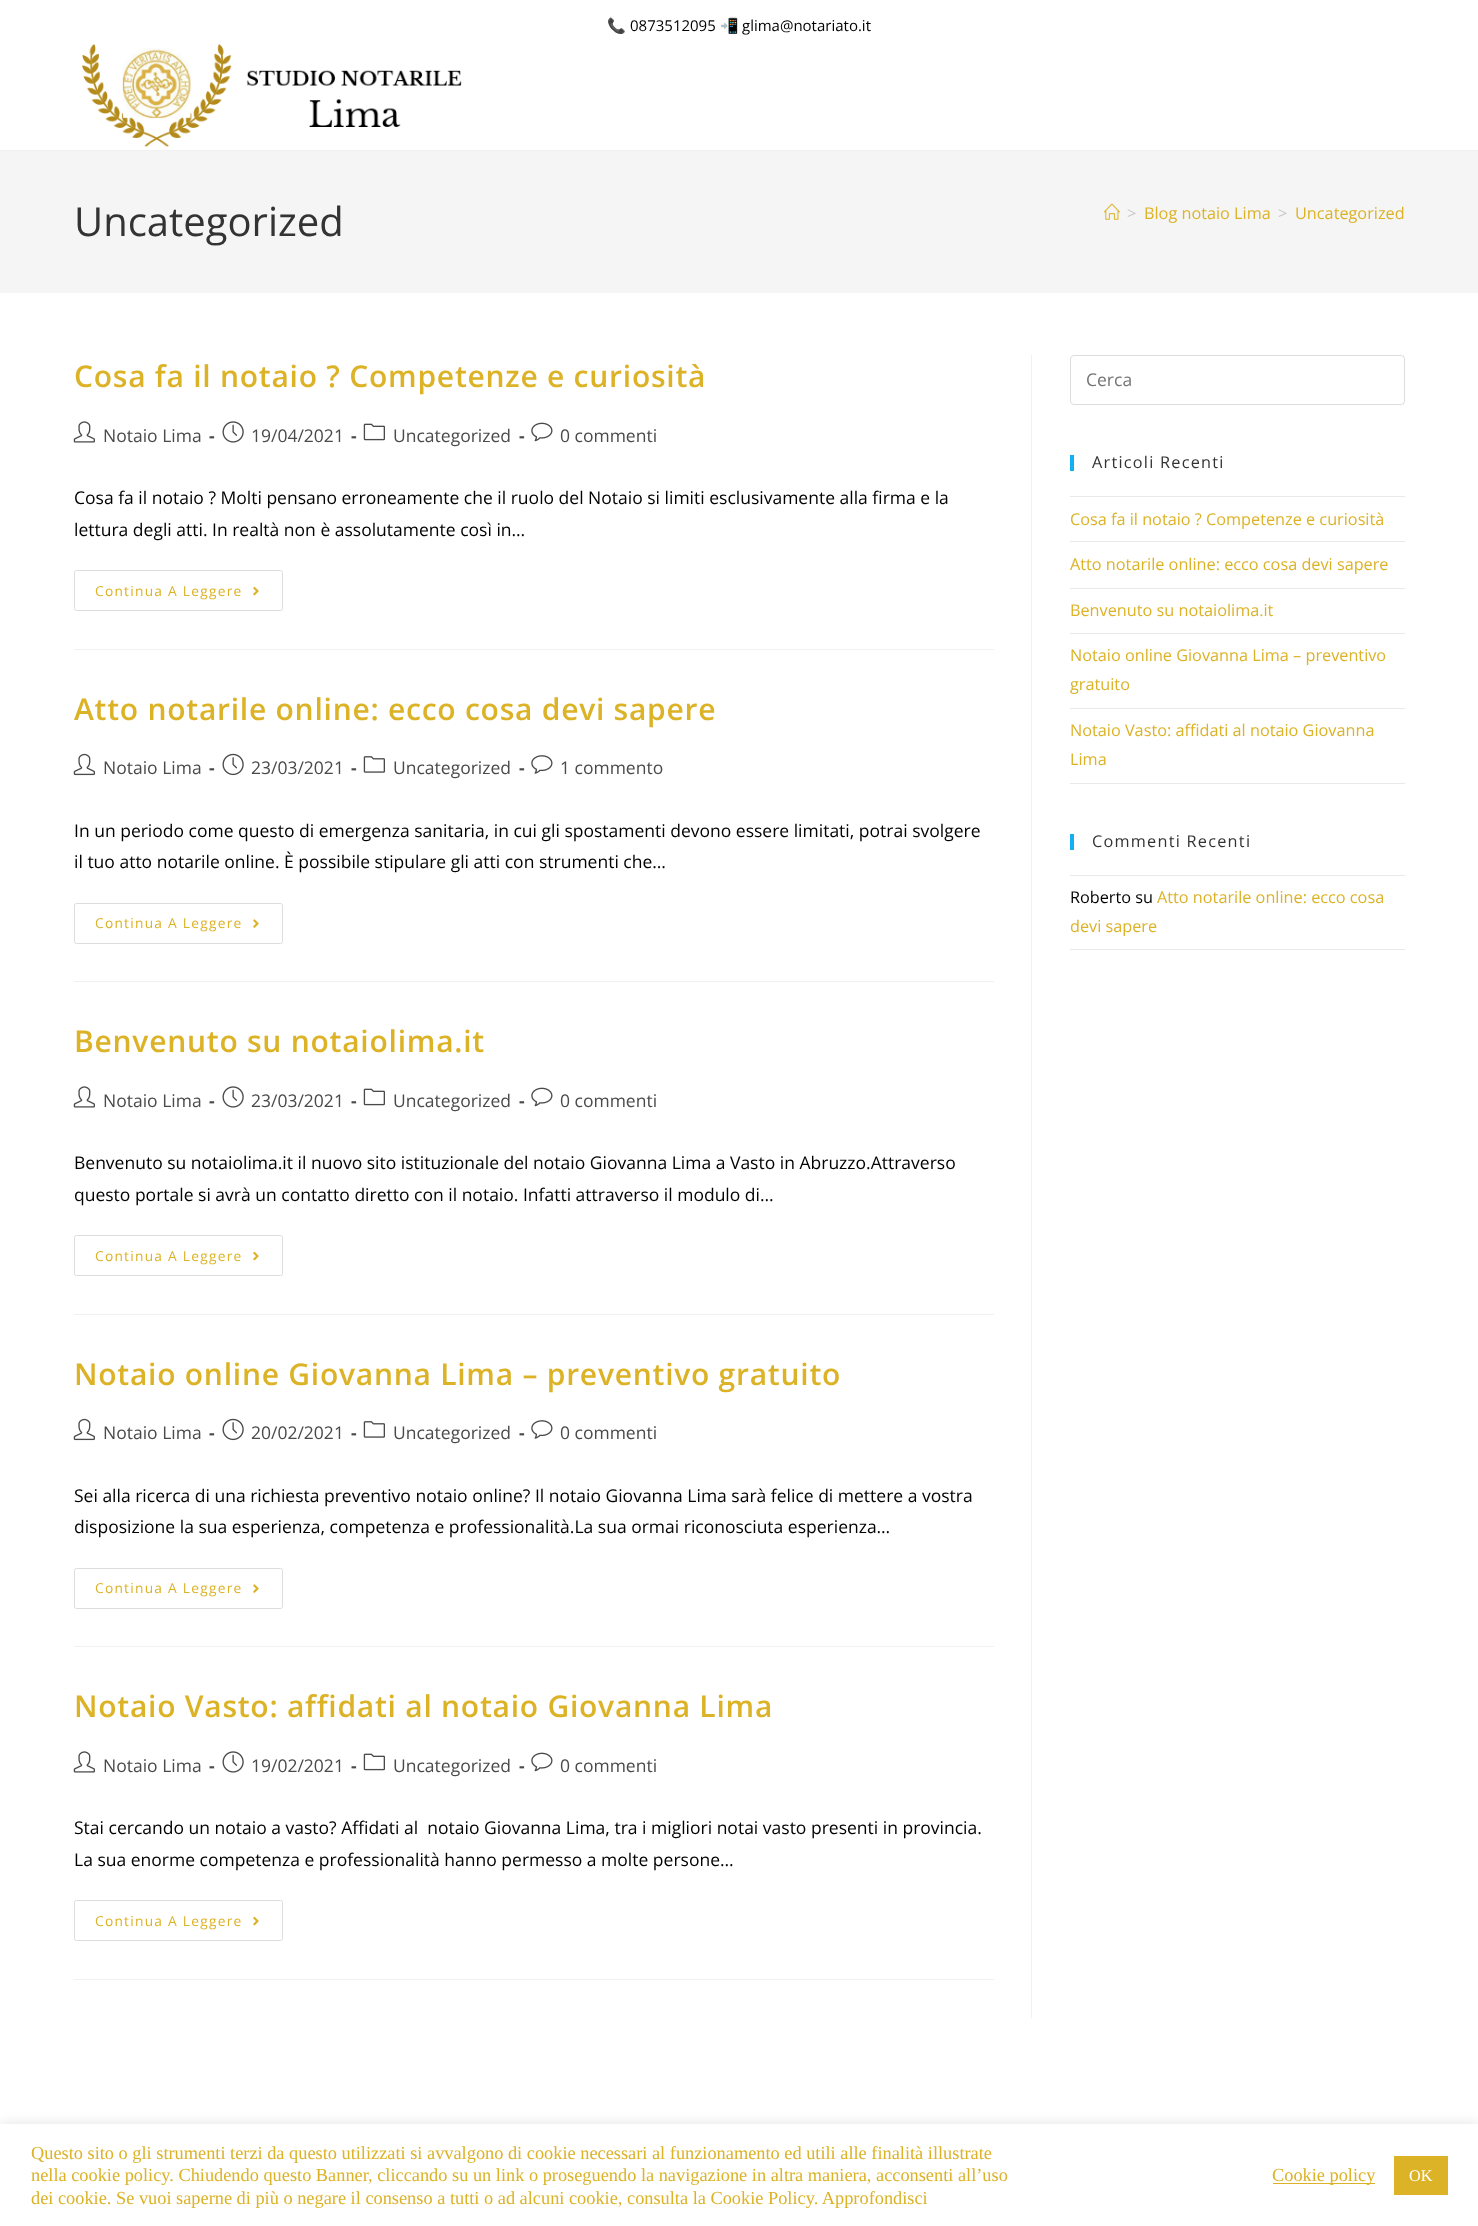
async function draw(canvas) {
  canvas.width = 1478;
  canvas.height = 2226;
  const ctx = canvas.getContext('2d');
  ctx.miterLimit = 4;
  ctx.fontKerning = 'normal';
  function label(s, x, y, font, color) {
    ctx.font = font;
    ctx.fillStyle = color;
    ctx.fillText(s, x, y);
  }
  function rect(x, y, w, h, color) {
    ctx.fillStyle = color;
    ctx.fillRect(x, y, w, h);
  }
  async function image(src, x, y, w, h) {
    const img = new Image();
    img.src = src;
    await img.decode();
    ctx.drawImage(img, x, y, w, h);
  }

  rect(0, 0, 1478, 2226, '#fff');
  label('📞', 607, 31, '15px Noto Color Emoji', '#000');
  label('0873512095', 630, 31, '15px Open Sans', '#000');
  label('📲', 720, 31, '15px Noto Color Emoji', '#000');
  label('glima@notariato.it', 742, 31, '15px Open Sans', '#000');
  rect(0, 150, 1478, 1, '#f1f1f1');
  await image('assets/img1.png', 82, 44, 380, 103);
  rect(0, 151, 1478, 142, '#f5f5f5');
  label('Uncategorized', 74, 236, '40px Open Sans', '#333');
  await image('assets/img2.png', 1104, 203, 16, 17);
  label('>', 1127, 219, '16.25px Open Sans', '#c6c6c6');
  label('Blog notaio Lima', 1144, 219, '16.25px Open Sans', '#dcb226');
  label('>', 1278, 219, '16.25px Open Sans', '#c6c6c6');
  label('Uncategorized', 1295, 219, '16.25px Open Sans', '#dcb226');
  rect(1031, 355, 1, 1663, '#f1f1f1');
  rect(74, 649, 920, 1, '#f1f1f1');
  ctx.letterSpacing = '0.75px';
  label('Cosa fa il notaio ? Competenze e curiosità', 74, 387, '600 30px Open Sans', '#dcb226');
  await image('assets/img3.png', 73, 421, 22, 22);
  ctx.letterSpacing = '0px';
  label('Notaio Lima', 103, 442, '17.5px Open Sans', '#4a4a4a');
  label('-', 209, 442, 'bold 17.5px Open Sans', '#4a4a4a');
  await image('assets/img4.png', 222, 421, 22, 22);
  label('19/04/2021', 251, 442, '17.5px Open Sans', '#4a4a4a');
  label('-', 351, 442, 'bold 17.5px Open Sans', '#4a4a4a');
  await image('assets/img5.png', 363, 423, 22, 18);
  label('Uncategorized', 393, 442, '17.5px Open Sans', '#4a4a4a');
  label('-', 519, 442, 'bold 17.5px Open Sans', '#4a4a4a');
  await image('assets/img6.png', 531, 422, 22, 20);
  label('0 commenti', 560, 442, '17.5px Open Sans', '#4a4a4a');
  label('Cosa fa il notaio ? Molti pensano erroneamente che il ruolo del Notaio si limiti esclusivamente alla firma e la', 74, 504, '17.5px Open Sans', '#000');
  label('lettura degli atti. In realtà non è assolutamente così in…', 74, 536, '17.5px Open Sans', '#000');
  ctx.beginPath();
  ctx.roundRect(74.5, 570.5, 208, 40, 2);
  ctx.strokeStyle = '#ddd';
  ctx.stroke();
  ctx.letterSpacing = '1.25px';
  label('Continua A Leggere', 95, 596, '13.75px Open Sans', '#dcb226');
  await image('assets/img7.png', 253, 586, 6, 10);
  rect(74, 981, 920, 1, '#f1f1f1');
  ctx.letterSpacing = '0.75px';
  label('Atto notarile online: ecco cosa devi sapere', 74, 720, '600 30px Open Sans', '#dcb226');
  await image('assets/img8.png', 73, 753, 22, 23);
  ctx.letterSpacing = '0px';
  label('Notaio Lima', 103, 774, '17.5px Open Sans', '#4a4a4a');
  label('-', 209, 774, 'bold 17.5px Open Sans', '#4a4a4a');
  await image('assets/img9.png', 222, 753, 22, 23);
  label('23/03/2021', 251, 774, '17.5px Open Sans', '#4a4a4a');
  label('-', 351, 774, 'bold 17.5px Open Sans', '#4a4a4a');
  await image('assets/img10.png', 363, 756, 22, 17);
  label('Uncategorized', 393, 774, '17.5px Open Sans', '#4a4a4a');
  label('-', 519, 774, 'bold 17.5px Open Sans', '#4a4a4a');
  await image('assets/img11.png', 531, 755, 22, 19);
  label('1 commento', 560, 774, '17.5px Open Sans', '#4a4a4a');
  label('In un periodo come questo di emergenza sanitaria, in cui gli spostamenti devono essere limitati, potrai svolgere', 74, 837, '17.5px Open Sans', '#000');
  label('il tuo atto notarile online. È possibile stipulare gli atti con strumenti che…', 74, 868, '17.5px Open Sans', '#000');
  ctx.beginPath();
  ctx.roundRect(74.5, 903.5, 208, 40, 2);
  ctx.stroke();
  ctx.letterSpacing = '1.25px';
  label('Continua A Leggere', 95, 928, '13.75px Open Sans', '#dcb226');
  await image('assets/img12.png', 253, 919, 6, 9);
  rect(74, 1314, 920, 1, '#f1f1f1');
  ctx.letterSpacing = '0.75px';
  label('Benvenuto su notaiolima.it', 74, 1052, '600 30px Open Sans', '#dcb226');
  await image('assets/img3.png', 73, 1086, 22, 22);
  ctx.letterSpacing = '0px';
  label('Notaio Lima', 103, 1107, '17.5px Open Sans', '#4a4a4a');
  label('-', 209, 1107, 'bold 17.5px Open Sans', '#4a4a4a');
  await image('assets/img4.png', 222, 1086, 22, 22);
  label('23/03/2021', 251, 1107, '17.5px Open Sans', '#4a4a4a');
  label('-', 351, 1107, 'bold 17.5px Open Sans', '#4a4a4a');
  await image('assets/img5.png', 363, 1088, 22, 18);
  label('Uncategorized', 393, 1107, '17.5px Open Sans', '#4a4a4a');
  label('-', 519, 1107, 'bold 17.5px Open Sans', '#4a4a4a');
  await image('assets/img6.png', 531, 1087, 22, 20);
  label('0 commenti', 560, 1107, '17.5px Open Sans', '#4a4a4a');
  label('Benvenuto su notaiolima.it il nuovo sito istituzionale del notaio Giovanna Lima a Vasto in Abruzzo.Attraverso', 74, 1169, '17.5px Open Sans', '#000');
  label('questo portale si avrà un contatto diretto con il notaio. Infatti attraverso il modulo di…', 74, 1201, '17.5px Open Sans', '#000');
  ctx.beginPath();
  ctx.roundRect(74.5, 1235.5, 208, 40, 2);
  ctx.stroke();
  ctx.letterSpacing = '1.25px';
  label('Continua A Leggere', 95, 1261, '13.75px Open Sans', '#dcb226');
  await image('assets/img7.png', 253, 1251, 6, 10);
  rect(74, 1646, 920, 1, '#f1f1f1');
  ctx.letterSpacing = '0.75px';
  label('Notaio online Giovanna Lima – preventivo gratuito', 74, 1385, '600 30px Open Sans', '#dcb226');
  await image('assets/img8.png', 73, 1418, 22, 23);
  ctx.letterSpacing = '0px';
  label('Notaio Lima', 103, 1439, '17.5px Open Sans', '#4a4a4a');
  label('-', 209, 1439, 'bold 17.5px Open Sans', '#4a4a4a');
  await image('assets/img9.png', 222, 1418, 22, 23);
  label('20/02/2021', 251, 1439, '17.5px Open Sans', '#4a4a4a');
  label('-', 351, 1439, 'bold 17.5px Open Sans', '#4a4a4a');
  await image('assets/img10.png', 363, 1421, 22, 17);
  label('Uncategorized', 393, 1439, '17.5px Open Sans', '#4a4a4a');
  label('-', 519, 1439, 'bold 17.5px Open Sans', '#4a4a4a');
  await image('assets/img11.png', 531, 1420, 22, 19);
  label('0 commenti', 560, 1439, '17.5px Open Sans', '#4a4a4a');
  label('Sei alla ricerca di una richiesta preventivo notaio online? Il notaio Giovanna Lima sarà felice di mettere a vostra', 74, 1502, '17.5px Open Sans', '#000');
  label('disposizione la sua esperienza, competenza e professionalità.La sua ormai riconosciuta esperienza…', 74, 1533, '17.5px Open Sans', '#000');
  ctx.beginPath();
  ctx.roundRect(74.5, 1568.5, 208, 40, 2);
  ctx.stroke();
  ctx.letterSpacing = '1.25px';
  label('Continua A Leggere', 95, 1593, '13.75px Open Sans', '#dcb226');
  await image('assets/img12.png', 253, 1584, 6, 9);
  rect(74, 1979, 920, 1, '#f1f1f1');
  ctx.letterSpacing = '0.75px';
  label('Notaio Vasto: affidati al notaio Giovanna Lima', 74, 1717, '600 30px Open Sans', '#dcb226');
  await image('assets/img3.png', 73, 1751, 22, 22);
  ctx.letterSpacing = '0px';
  label('Notaio Lima', 103, 1772, '17.5px Open Sans', '#4a4a4a');
  label('-', 209, 1772, 'bold 17.5px Open Sans', '#4a4a4a');
  await image('assets/img4.png', 222, 1751, 22, 22);
  label('19/02/2021', 251, 1772, '17.5px Open Sans', '#4a4a4a');
  label('-', 351, 1772, 'bold 17.5px Open Sans', '#4a4a4a');
  await image('assets/img5.png', 363, 1753, 22, 18);
  label('Uncategorized', 393, 1772, '17.5px Open Sans', '#4a4a4a');
  label('-', 519, 1772, 'bold 17.5px Open Sans', '#4a4a4a');
  await image('assets/img6.png', 531, 1752, 22, 20);
  label('0 commenti', 560, 1772, '17.5px Open Sans', '#4a4a4a');
  label('Stai cercando un notaio a vasto? Affidati al  notaio Giovanna Lima, tra i migliori notai vasto presenti in provincia.', 74, 1834, '17.5px Open Sans', '#000');
  label('La sua enorme competenza e professionalità hanno permesso a molte persone…', 74, 1866, '17.5px Open Sans', '#000');
  ctx.beginPath();
  ctx.roundRect(74.5, 1900.5, 208, 40, 2);
  ctx.stroke();
  ctx.letterSpacing = '1.25px';
  label('Continua A Leggere', 95, 1926, '13.75px Open Sans', '#dcb226');
  await image('assets/img7.png', 253, 1916, 6, 10);
  ctx.beginPath();
  ctx.roundRect(1070.5, 355.5, 334, 49, 3.5);
  ctx.stroke();
  ctx.letterSpacing = '0px';
  label('Cerca', 1086, 386, '17.5px Open Sans', '#757575');
  rect(1070, 455, 4, 16, '#13aff0');
  ctx.letterSpacing = '1.25px';
  label('Articoli Recenti', 1092, 468, '16.25px Open Sans', '#333');
  rect(1070, 496, 335, 1, '#e9e9e9');
  rect(1070, 541, 335, 1, '#e9e9e9');
  ctx.letterSpacing = '0px';
  label('Cosa fa il notaio ? Competenze e curiosità', 1070, 525, '16.25px Open Sans', '#dcb226');
  rect(1070, 588, 335, 1, '#e9e9e9');
  label('Atto notarile online: ecco cosa devi sapere', 1070, 570, '16.25px Open Sans', '#dcb226');
  rect(1070, 633, 335, 1, '#e9e9e9');
  label('Benvenuto su notaiolima.it', 1070, 616, '16.25px Open Sans', '#dcb226');
  rect(1070, 708, 335, 1, '#e9e9e9');
  label('Notaio online Giovanna Lima – preventivo', 1070, 661, '16.25px Open Sans', '#dcb226');
  label('gratuito', 1070, 690, '16.25px Open Sans', '#dcb226');
  rect(1070, 783, 335, 1, '#e9e9e9');
  label('Notaio Vasto: affidati al notaio Giovanna', 1070, 736, '16.25px Open Sans', '#dcb226');
  label('Lima', 1070, 765, '16.25px Open Sans', '#dcb226');
  rect(1070, 834, 4, 16, '#13aff0');
  ctx.letterSpacing = '1.25px';
  label('Commenti Recenti', 1092, 847, '16.25px Open Sans', '#333');
  rect(1070, 875, 335, 1, '#e9e9e9');
  rect(1070, 949, 335, 1, '#e9e9e9');
  ctx.letterSpacing = '0px';
  label('Roberto su', 1070, 903, '16.25px Open Sans', '#000');
  label('Atto notarile online: ecco cosa', 1157, 903, '16.25px Open Sans', '#dcb226');
  label('devi sapere', 1070, 932, '16.25px Open Sans', '#dcb226');
  ctx.fillStyle = '#acabab4d';
  ctx.filter = 'blur(6px)';
  ctx.beginPath();
  ctx.rect(0, 2123, 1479, 102);
  ctx.fill();
  ctx.filter = 'none';
  rect(0, 2124, 1478, 102, '#fff');
  label('Questo sito o gli strumenti terzi da questo utilizzati si avvalgono di cookie necessari al funzionamento ed utili alle finalità illustrate', 31, 2159, '18.33px Liberation Serif', '#dcb226');
  label('nella cookie policy. Chiudendo questo Banner, cliccando su un link o proseguendo la navigazione in altra maniera, acconsenti all’uso', 31, 2181, '18.33px Liberation Serif', '#dcb226');
  label('dei cookie. Se vuoi saperne di più o negare il consenso a tutti o ad alcuni cookie, consulta la Cookie Policy. Approfondisci', 31, 2204, '18.33px Liberation Serif', '#dcb226');
  rect(1273, 2183, 102, 1, '#dcb226');
  label('Cookie policy', 1272, 2181, '18.33px Liberation Serif', '#dcb226');
  rect(1394, 2156, 54, 39, '#dcb226');
  label('OK', 1409, 2181, '16.25px Liberation Serif', '#fff');
}

draw(document.querySelector('canvas'));
